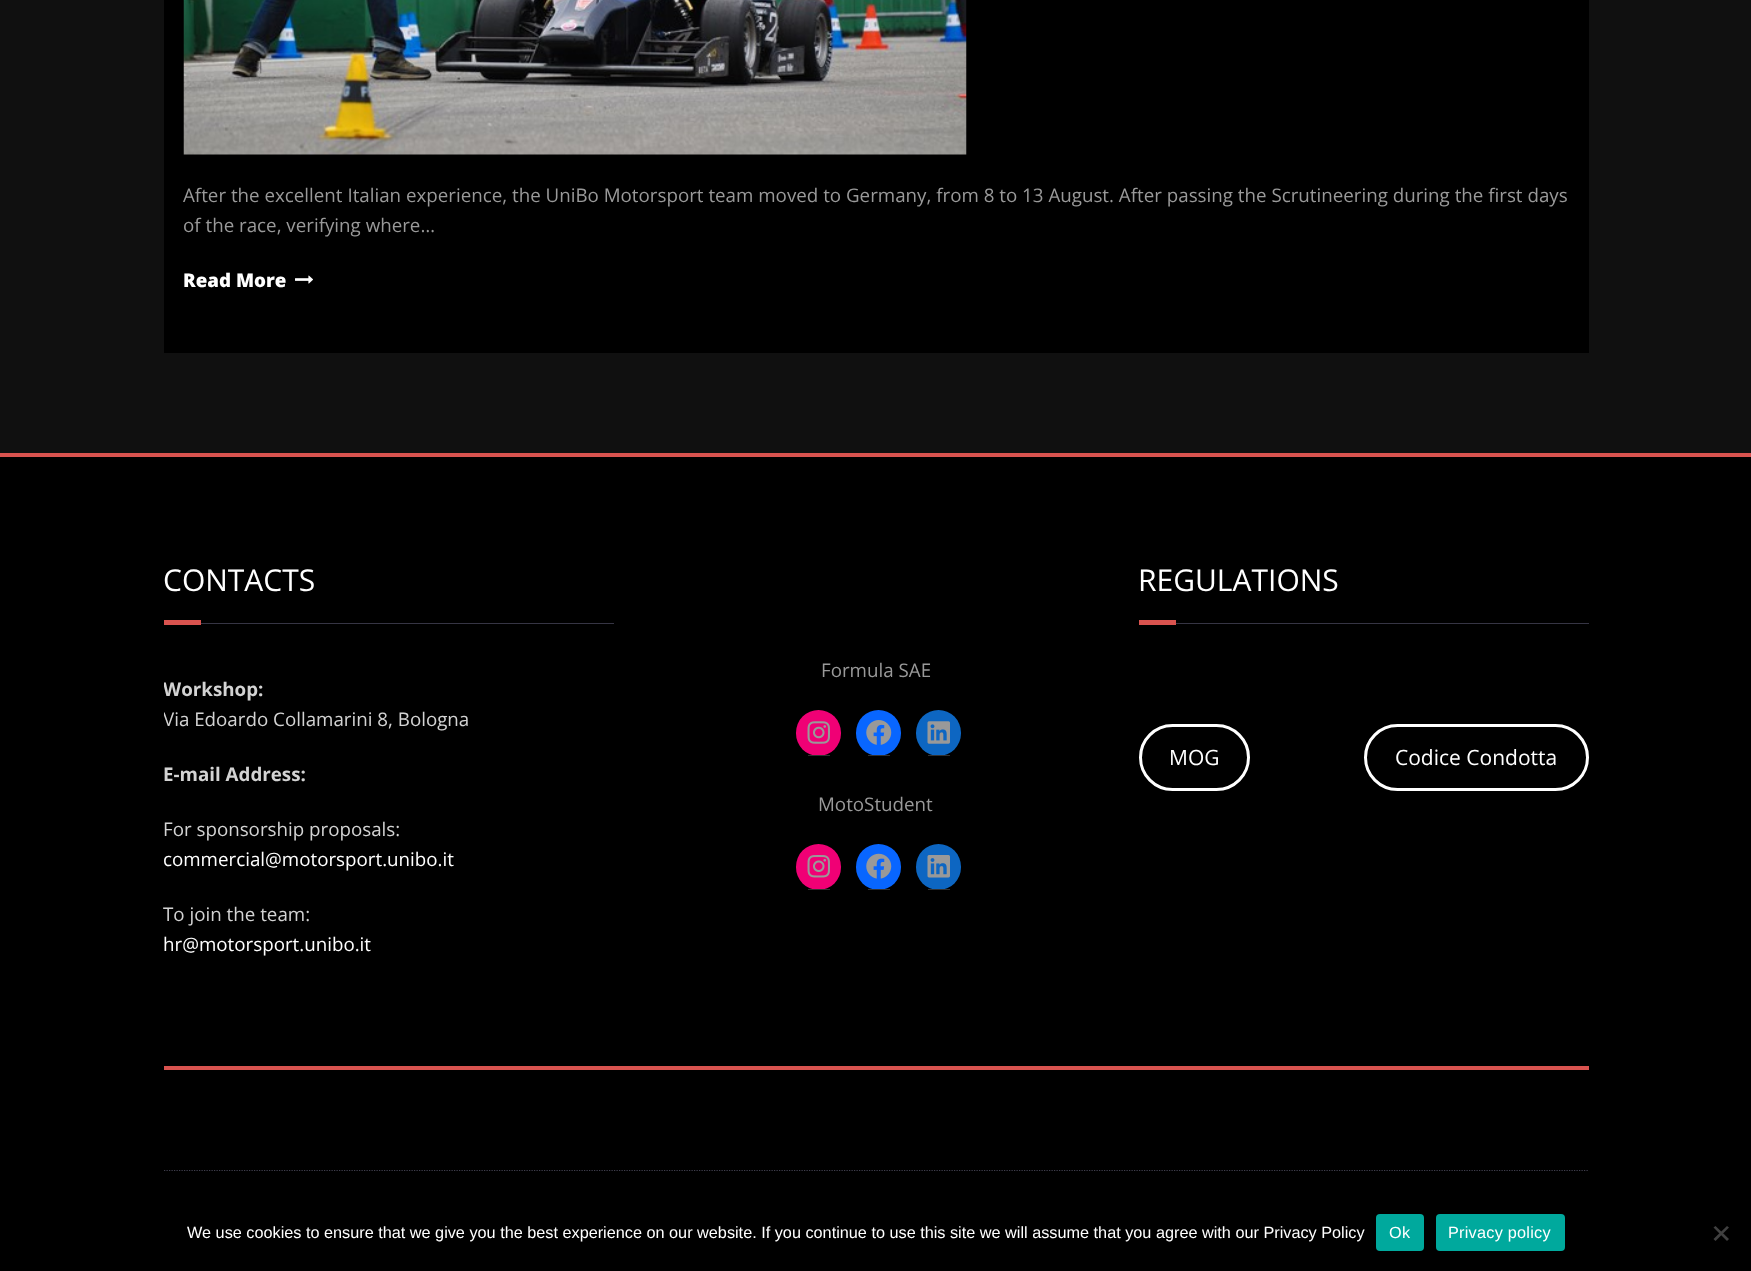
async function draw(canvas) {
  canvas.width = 1751;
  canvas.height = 1271;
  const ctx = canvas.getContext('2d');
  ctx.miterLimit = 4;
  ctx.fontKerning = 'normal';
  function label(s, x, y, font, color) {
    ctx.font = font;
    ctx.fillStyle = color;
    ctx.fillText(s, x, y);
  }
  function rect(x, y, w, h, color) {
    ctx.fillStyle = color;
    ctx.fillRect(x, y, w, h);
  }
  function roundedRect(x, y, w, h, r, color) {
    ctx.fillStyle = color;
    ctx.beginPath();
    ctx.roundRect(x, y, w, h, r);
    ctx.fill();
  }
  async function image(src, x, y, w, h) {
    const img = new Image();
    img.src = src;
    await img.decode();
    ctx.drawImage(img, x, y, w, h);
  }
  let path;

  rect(0, 0, 1751, 1271, '#000');
  rect(0, 0, 1751, 453, '#101010');
  rect(164, 0, 1425, 353, '#000');
  await image('assets/img1.png', 183, 0, 784, 155);
  label('After the excellent Italian experience, the UniBo Motorsport team moved to Germany, from 8 to 13 August. After passing the Scrutineering during the first days', 183, 202, '18.75px Open Sans', '#999');
  label('of the race, verifying where…', 183, 232, '18.75px Open Sans', '#999');
  label('Read More', 183, 287, '800 18.75px Open Sans', '#fff');
  await image('assets/img2.png', 295, 275, 18, 9);
  rect(0, 453, 1751, 4, '#d9534f');
  rect(201, 623, 413, 1, '#363544');
  label('CONTACTS', 163, 591, '30px Open Sans', '#fff');
  rect(164, 620, 37, 5, '#d9534f');
  ctx.save();
  ctx.beginPath();
  ctx.rect(164, 556, 450, 460);
  ctx.clip();
  label('Workshop:', 163, 696, 'bold 18.75px Open Sans', '#d3d3d3');
  label('Via Edoardo Collamarini 8, Bologna', 163, 726, '18.75px Open Sans', '#d3d3d3');
  ctx.restore();
  label('E-mail Address:', 163, 781, 'bold 18.75px Open Sans', '#d3d3d3');
  label('For sponsorship proposals:', 163, 836, '18.75px Open Sans', '#d3d3d3');
  label('commercial@motorsport.unibo.it', 163, 866, '18.75px Open Sans', '#fff');
  label('To join the team:', 163, 921, '18.75px Open Sans', '#d3d3d3');
  label('hr@motorsport.unibo.it', 163, 951, '18.75px Open Sans', '#fff');
  label('Formula SAE', 821, 677, '18.75px Open Sans', '#999');
  roundedRect(796, 710, 45, 46, 22.5, '#f00075');
  rect(808, 755, 22, 1, '#323232');
  await image('assets/img3.png', 807, 721, 23, 23);
  roundedRect(856, 710, 45, 46, 22.5, '#0866ff');
  rect(868, 755, 22, 1, '#323232');
  await image('assets/img4.png', 866, 720, 26, 25);
  roundedRect(916, 710, 45, 46, 22.5, '#0d66c2');
  rect(928, 755, 22, 1, '#323232');
  await image('assets/img5.png', 927, 721, 23, 23);
  label('MotoStudent', 818, 811, '18.75px Open Sans', '#999');
  roundedRect(796, 844, 45, 46, 22.5, '#f00075');
  rect(808, 889, 22, 1, '#323232');
  await image('assets/img6.png', 807, 855, 23, 23);
  roundedRect(856, 844, 45, 46, 22.5, '#0866ff');
  rect(868, 889, 22, 1, '#323232');
  await image('assets/img7.png', 866, 853, 26, 26);
  roundedRect(916, 844, 45, 46, 22.5, '#0d66c2');
  rect(928, 889, 22, 1, '#323232');
  await image('assets/img8.png', 927, 855, 23, 23);
  rect(1176, 623, 413, 1, '#363544');
  label('REGULATIONS', 1138, 591, '30px Open Sans', '#fff');
  rect(1139, 620, 37, 5, '#d9534f');
  ctx.beginPath();
  ctx.roundRect(1140.5, 725.5, 108, 64, 32);
  ctx.strokeStyle = '#fff';
  ctx.lineWidth = 3;
  ctx.stroke();
  label('MOG', 1169, 765, '21px Open Sans', '#fff');
  ctx.beginPath();
  ctx.roundRect(1365.5, 725.5, 222, 64, 32);
  ctx.stroke();
  label('Codice Condotta', 1395, 765, '21px Open Sans', '#fff');
  rect(164, 1066, 1425, 4, '#d9534f');
  path = new Path2D('M164 1170.5H1589');
  ctx.strokeStyle = '#403f4e';
  ctx.lineWidth = 1.2;
  ctx.setLineDash([1.25, 1.25]);
  ctx.stroke(path);
  label('We use cookies to ensure that we give you the best experience on our website. If you continue to use this site we will assume that you agree with our Privacy Policy', 187, 1238, '16.25px Liberation Sans', '#fff');
  roundedRect(1376, 1214, 48, 37, 4, '#00a99d');
  ctx.letterSpacing = '0.25px';
  label('Ok', 1389, 1238, '16.25px Liberation Sans', '#fff');
  roundedRect(1436, 1214, 129, 37, 4, '#00a99d');
  label('Privacy policy', 1448, 1238, '16.25px Liberation Sans', '#fff');
  ctx.fillStyle = '#404040';
  path = new Path2D('M1727 1226L1729 1227.5L1715.5 1241L1713.5 1239Z');
  ctx.fill(path);
  path = new Path2D('M1713.5 1227.5L1715.5 1226L1729 1239L1727 1241Z');
  ctx.fill(path);
}

draw(document.querySelector('canvas'));
